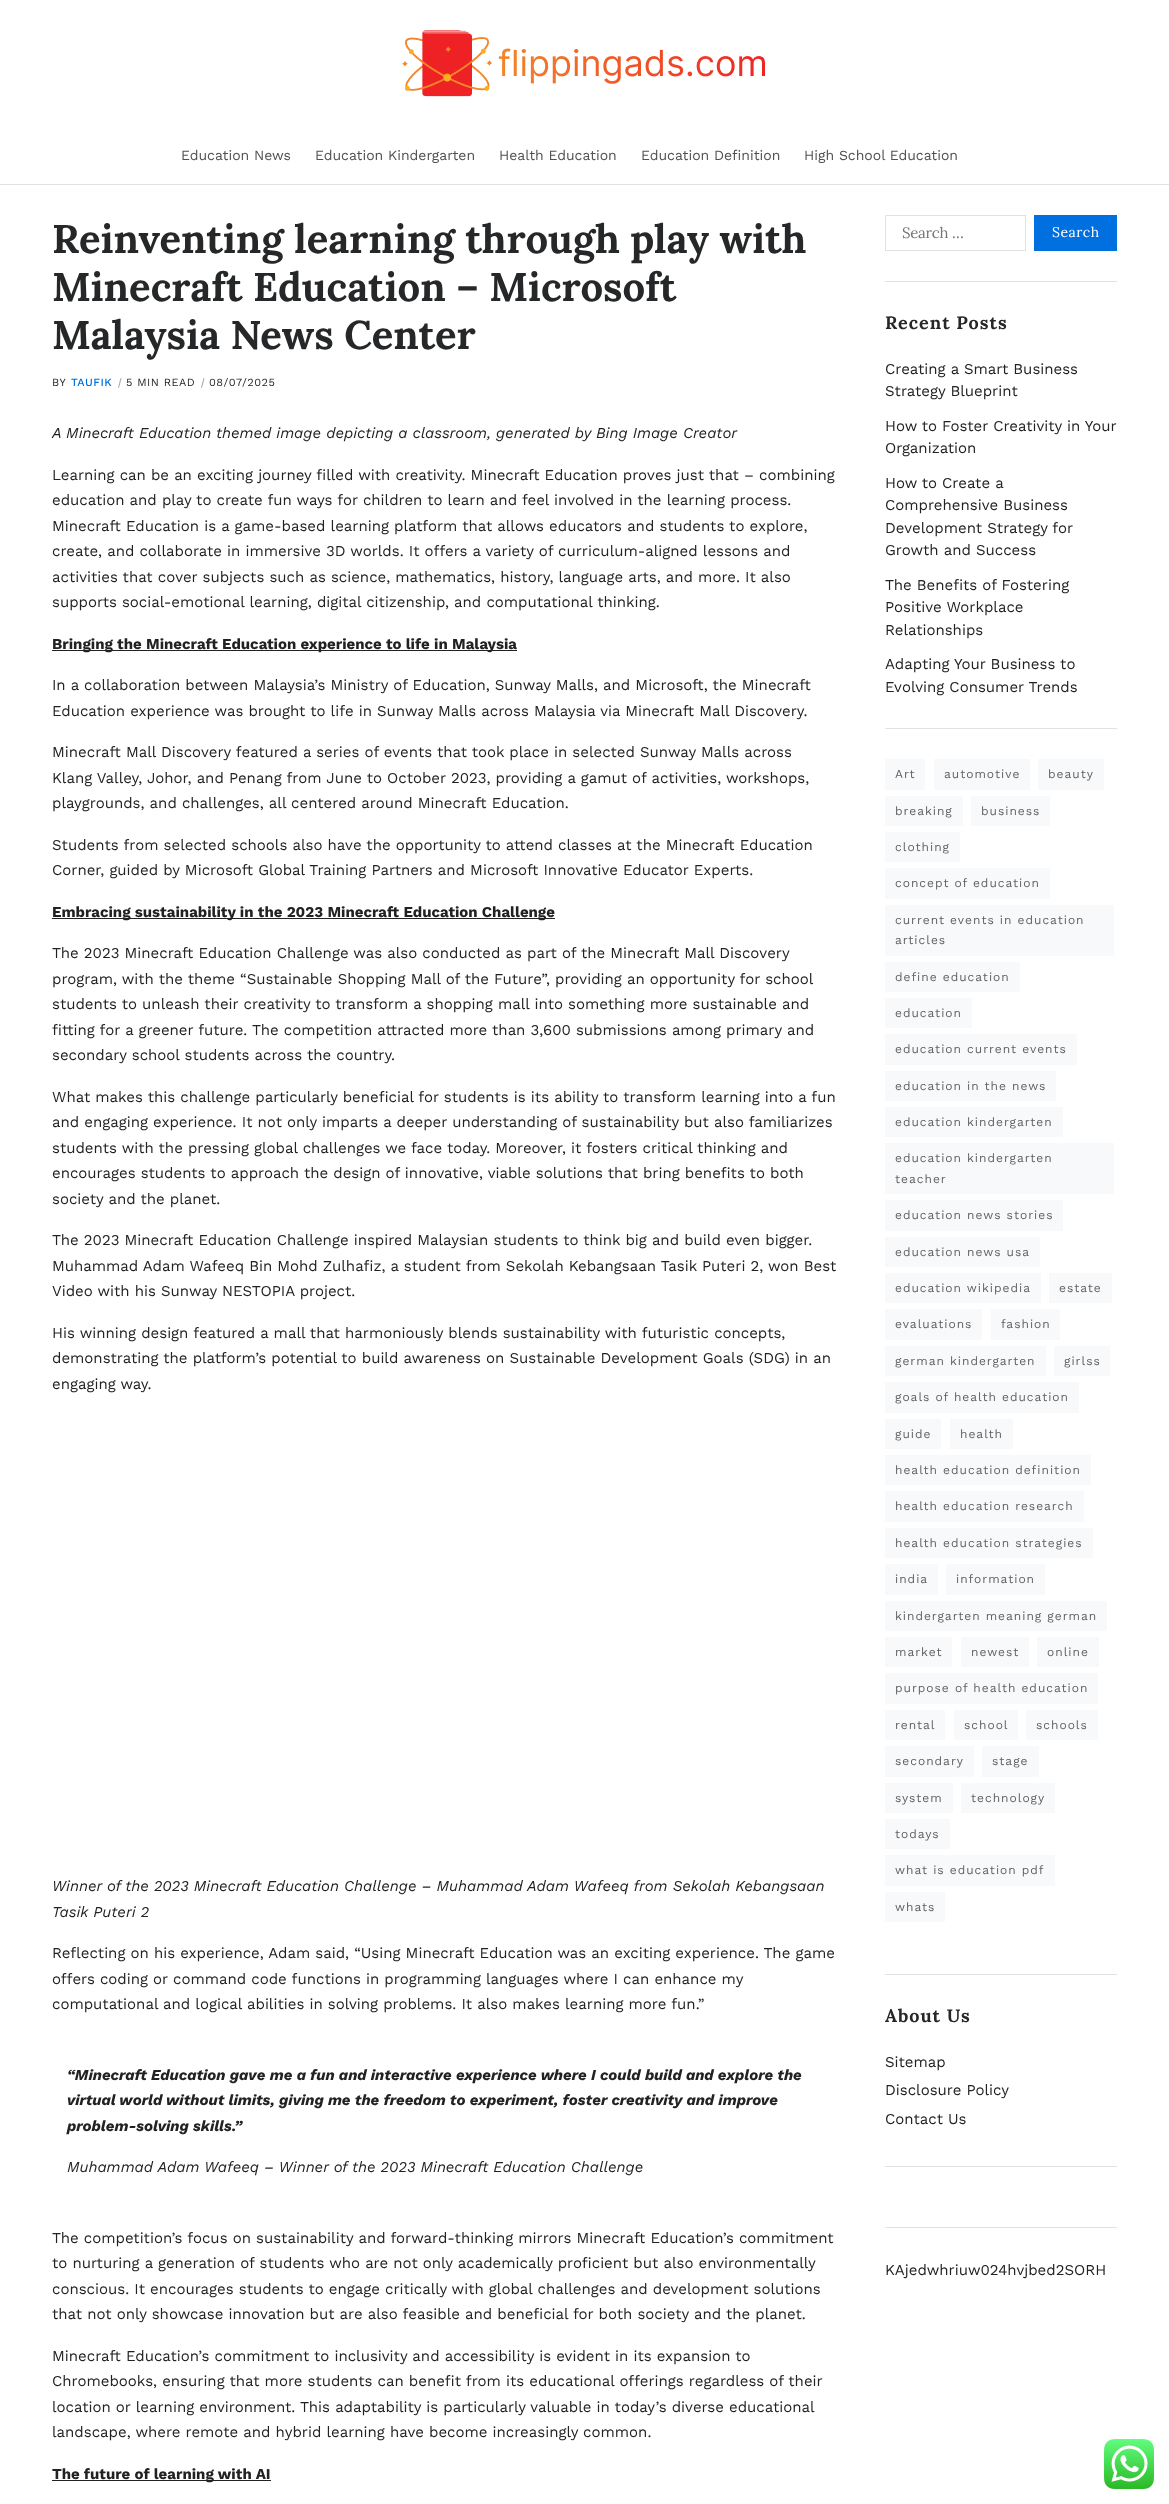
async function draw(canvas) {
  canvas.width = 1169;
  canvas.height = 2504;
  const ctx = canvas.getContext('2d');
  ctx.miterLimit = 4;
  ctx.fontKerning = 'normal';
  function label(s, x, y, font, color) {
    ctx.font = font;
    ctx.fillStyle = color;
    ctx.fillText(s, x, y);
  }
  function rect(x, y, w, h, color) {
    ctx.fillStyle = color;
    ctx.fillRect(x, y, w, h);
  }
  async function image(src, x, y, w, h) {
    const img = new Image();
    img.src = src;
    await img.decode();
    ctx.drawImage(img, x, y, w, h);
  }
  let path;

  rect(0, 0, 1169, 2504, '#fff');
  await image('assets/img1.png', 402, 30, 363, 67);
  rect(0, 184, 1169, 1, '#dee2e6');
  label('Education News', 181, 160, '14px Work Sans', '#505050');
  label('Education Kindergarten', 315, 160, '14px Work Sans', '#505050');
  label('Health Education', 499, 160, '14px Work Sans', '#505050');
  label('Education Definition', 641, 160, '14px Work Sans', '#505050');
  label('High School Education', 804, 160, '14px Work Sans', '#505050');
  label('Reinventing learning through play with', 52, 253, 'bold 40px Lora', '#252728');
  label('Minecraft Education – Microsoft', 52, 301, 'bold 40px Lora', '#252728');
  label('Malaysia News Center', 52, 349, 'bold 40px Lora', '#252728');
  ctx.letterSpacing = '0.5px';
  label('BY', 52, 386, '11px Work Sans', '#252728');
  label('TAUFIK', 71, 386, '500 11px Work Sans', '#0070e0');
  ctx.fillStyle = '#a7acb1';
  path = new Path2D('M120.5 378L121.5 378.5L119 388L118 387.5Z');
  ctx.fill(path);
  label('5 MIN READ', 126, 386, '11px Work Sans', '#252728');
  ctx.fillStyle = '#a7acb1';
  path = new Path2D('M203.5 378L204.5 378.5L202 388L201 387.5Z');
  ctx.fill(path);
  label('08/07/2025', 209, 386, '11px Work Sans', '#252728');
  ctx.letterSpacing = '0px';
  label('A Minecraft Education themed image depicting a classroom, generated by Bing Image Creator', 52, 438, 'italic 15px Work Sans', '#232222');
  label('Learning can be an exciting journey filled with creativity. Minecraft Education proves just that – combining', 52, 480, '15px Work Sans', '#232222');
  label('education and play to create fun ways for children to learn and feel involved in the learning process.', 52, 505, '15px Work Sans', '#232222');
  label('Minecraft Education is a game-based learning platform that allows educators and students to explore,', 52, 531, '15px Work Sans', '#232222');
  label('create, and collaborate in immersive 3D worlds. It offers a variety of curriculum-aligned lessons and', 52, 556, '15px Work Sans', '#232222');
  label('activities that cover subjects such as science, mathematics, history, language arts, and more. It also', 52, 582, '15px Work Sans', '#232222');
  label('supports social-emotional learning, digital citizenship, and computational thinking.', 52, 607, '15px Work Sans', '#232222');
  rect(52, 650, 465, 1, '#232222');
  label('Bringing the Minecraft Education experience to life in Malaysia', 52, 649, 'bold 15px Work Sans', '#232222');
  label('In a collaboration between Malaysia’s Ministry of Education, Sunway Malls, and Microsoft, the Minecraft', 52, 690, '15px Work Sans', '#232222');
  label('Education experience was brought to life in Sunway Malls across Malaysia via Minecraft Mall Discovery.', 52, 716, '15px Work Sans', '#232222');
  label('Minecraft Mall Discovery featured a series of events that took place in selected Sunway Malls across', 52, 757, '15px Work Sans', '#232222');
  label('Klang Valley, Johor, and Penang from June to October 2023, providing a gamut of activities, workshops,', 52, 783, '15px Work Sans', '#232222');
  label('playgrounds, and challenges, all centered around Minecraft Education.', 52, 808, '15px Work Sans', '#232222');
  label('Students from selected schools also have the opportunity to attend classes at the Minecraft Education', 52, 850, '15px Work Sans', '#232222');
  label('Corner, guided by Microsoft Global Training Partners and Microsoft Innovative Educator Experts.', 52, 875, '15px Work Sans', '#232222');
  rect(52, 918, 503, 1, '#232222');
  label('Embracing sustainability in the 2023 Minecraft Education Challenge', 52, 917, 'bold 15px Work Sans', '#232222');
  label('The 2023 Minecraft Education Challenge was also conducted as part of the Minecraft Mall Discovery', 52, 958, '15px Work Sans', '#232222');
  label('program, with the theme “Sustainable Shopping Mall of the Future”, providing an opportunity for school', 52, 984, '15px Work Sans', '#232222');
  label('students to unleash their creativity to transform a shopping mall into something more sustainable and', 52, 1009, '15px Work Sans', '#232222');
  label('fitting for a greener future. The competition attracted more than 3,600 submissions among primary and', 52, 1035, '15px Work Sans', '#232222');
  label('secondary school students across the country.', 52, 1060, '15px Work Sans', '#232222');
  label('What makes this challenge particularly beneficial for students is its ability to transform learning into a fun', 52, 1102, '15px Work Sans', '#232222');
  label('and engaging experience. It not only imparts a deeper understanding of sustainability but also familiarizes', 52, 1127, '15px Work Sans', '#232222');
  label('students with the pressing global challenges we face today. Moreover, it fosters critical thinking and', 52, 1153, '15px Work Sans', '#232222');
  label('encourages students to approach the design of innovative, viable solutions that bring benefits to both', 52, 1178, '15px Work Sans', '#232222');
  label('society and the planet.', 52, 1204, '15px Work Sans', '#232222');
  label('The 2023 Minecraft Education Challenge inspired Malaysian students to think big and build even bigger.', 52, 1245, '15px Work Sans', '#232222');
  label('Muhammad Adam Wafeeq Bin Mohd Zulhafiz, a student from Sekolah Kebangsaan Tasik Puteri 2, won Best', 52, 1271, '15px Work Sans', '#232222');
  label('Video with his Sunway NESTOPIA project.', 52, 1296, '15px Work Sans', '#232222');
  label('His winning design featured a mall that harmoniously blends sustainability with futuristic concepts,', 52, 1338, '15px Work Sans', '#232222');
  label('demonstrating the platform’s potential to build awareness on Sustainable Development Goals (SDG) in an', 52, 1363, '15px Work Sans', '#232222');
  label('engaging way.', 52, 1389, '15px Work Sans', '#232222');
  label('Winner of the 2023 Minecraft Education Challenge – Muhammad Adam Wafeeq from Sekolah Kebangsaan', 52, 1891, 'italic 15px Work Sans', '#232222');
  label('Tasik Puteri 2', 52, 1917, 'italic 15px Work Sans', '#232222');
  label('Reflecting on his experience, Adam said, “Using Minecraft Education was an exciting experience. The game', 52, 1958, '15px Work Sans', '#232222');
  label('offers coding or command code functions in programming languages where I can enhance my', 52, 1984, '15px Work Sans', '#232222');
  label('computational and logical abilities in solving problems. It also makes learning more fun.”', 52, 2009, '15px Work Sans', '#232222');
  label('“Minecraft Education gave me a fun and interactive experience where I could build and explore the', 67, 2080, 'italic bold 15px Work Sans', '#232222');
  label('virtual world without limits, giving me the freedom to experiment, foster creativity and improve', 67, 2105, 'italic bold 15px Work Sans', '#232222');
  label('problem-solving skills.”', 67, 2131, 'italic bold 15px Work Sans', '#232222');
  label('Muhammad Adam Wafeeq – Winner of the 2023 Minecraft Education Challenge', 67, 2172, 'italic 15px Work Sans', '#232222');
  label('The competition’s focus on sustainability and forward-thinking mirrors Minecraft Education’s commitment', 52, 2243, '15px Work Sans', '#232222');
  label('to nurturing a generation of students who are not only academically proficient but also environmentally', 52, 2268, '15px Work Sans', '#232222');
  label('conscious. It encourages students to engage critically with global challenges and development solutions', 52, 2294, '15px Work Sans', '#232222');
  label('that not only showcase innovation but are also feasible and beneficial for both society and the planet.', 52, 2319, '15px Work Sans', '#232222');
  label('Minecraft Education’s commitment to inclusivity and accessibility is evident in its expansion to', 52, 2361, '15px Work Sans', '#232222');
  label('Chromebooks, ensuring that more students can benefit from its educational offerings regardless of their', 52, 2386, '15px Work Sans', '#232222');
  label('location or learning environment. This adaptability is particularly valuable in today’s diverse educational', 52, 2412, '15px Work Sans', '#232222');
  label('landscape, where remote and hybrid learning have become increasingly common.', 52, 2437, '15px Work Sans', '#232222');
  rect(52, 2480, 219, 1, '#232222');
  label('The future of learning with AI', 52, 2479, 'bold 15px Work Sans', '#232222');
  rect(885, 281, 232, 1, '#dee2e6');
  ctx.strokeStyle = '#dee2e6';
  ctx.strokeRect(885.5, 215.5, 140, 35);
  ctx.letterSpacing = '-0.25px';
  label('Search …', 902, 238, '15px Lora', '#757575');
  rect(1034, 215, 83, 36, '#0070e0');
  ctx.letterSpacing = '0.5px';
  label('Search', 1052, 237, '14px Lora', '#fff');
  rect(885, 728, 232, 1, '#dee2e6');
  ctx.letterSpacing = '1px';
  label('Recent Posts', 885, 329, 'bold 18px Lora', '#252728');
  ctx.letterSpacing = '0px';
  label('Creating a Smart Business', 885, 374, '15px Work Sans', '#232222');
  label('Strategy Blueprint', 885, 396, '15px Work Sans', '#232222');
  label('How to Foster Creativity in Your', 885, 431, '15px Work Sans', '#232222');
  label('Organization', 885, 453, '15px Work Sans', '#232222');
  label('How to Create a', 885, 488, '15px Work Sans', '#232222');
  label('Comprehensive Business', 885, 510, '15px Work Sans', '#232222');
  label('Development Strategy for', 885, 533, '15px Work Sans', '#232222');
  label('Growth and Success', 885, 555, '15px Work Sans', '#232222');
  label('The Benefits of Fostering', 885, 590, '15px Work Sans', '#232222');
  label('Positive Workplace', 885, 612, '15px Work Sans', '#232222');
  label('Relationships', 885, 635, '15px Work Sans', '#232222');
  label('Adapting Your Business to', 885, 669, '15px Work Sans', '#232222');
  label('Evolving Consumer Trends', 885, 692, '15px Work Sans', '#232222');
  rect(885, 1974, 232, 1, '#dee2e6');
  rect(885, 759, 40, 31, '#f8f9fa');
  ctx.letterSpacing = '1px';
  label('Art', 895, 778, '12px Work Sans', '#616161');
  rect(934, 759, 96, 31, '#f8f9fa');
  label('automotive', 944, 778, '12px Work Sans', '#616161');
  rect(1038, 759, 66, 31, '#f8f9fa');
  label('beauty', 1048, 778, '12px Work Sans', '#616161');
  rect(885, 796, 78, 30, '#f8f9fa');
  label('breaking', 895, 815, '12px Work Sans', '#616161');
  rect(971, 796, 79, 30, '#f8f9fa');
  label('business', 981, 815, '12px Work Sans', '#616161');
  rect(885, 832, 75, 30, '#f8f9fa');
  label('clothing', 895, 851, '12px Work Sans', '#616161');
  rect(885, 868, 165, 31, '#f8f9fa');
  label('concept of education', 895, 887, '12px Work Sans', '#616161');
  rect(885, 905, 229, 51, '#f8f9fa');
  label('current events in education', 895, 924, '12px Work Sans', '#616161');
  label('articles', 895, 944, '12px Work Sans', '#616161');
  rect(885, 962, 135, 30, '#f8f9fa');
  label('define education', 895, 981, '12px Work Sans', '#616161');
  rect(885, 998, 87, 30, '#f8f9fa');
  label('education', 895, 1017, '12px Work Sans', '#616161');
  rect(885, 1034, 192, 31, '#f8f9fa');
  label('education current events', 895, 1053, '12px Work Sans', '#616161');
  rect(885, 1071, 171, 30, '#f8f9fa');
  label('education in the news', 895, 1090, '12px Work Sans', '#616161');
  rect(885, 1107, 178, 30, '#f8f9fa');
  label('education kindergarten', 895, 1126, '12px Work Sans', '#616161');
  rect(885, 1143, 229, 51, '#f8f9fa');
  label('education kindergarten', 895, 1162, '12px Work Sans', '#616161');
  label('teacher', 895, 1183, '12px Work Sans', '#616161');
  rect(885, 1200, 178, 31, '#f8f9fa');
  label('education news stories', 895, 1219, '12px Work Sans', '#616161');
  rect(885, 1237, 155, 30, '#f8f9fa');
  label('education news usa', 895, 1256, '12px Work Sans', '#616161');
  rect(885, 1273, 156, 30, '#f8f9fa');
  label('education wikipedia', 895, 1292, '12px Work Sans', '#616161');
  rect(1049, 1273, 63, 30, '#f8f9fa');
  label('estate', 1059, 1292, '12px Work Sans', '#616161');
  rect(885, 1309, 97, 31, '#f8f9fa');
  label('evaluations', 895, 1328, '12px Work Sans', '#616161');
  rect(991, 1309, 69, 31, '#f8f9fa');
  label('fashion', 1001, 1328, '12px Work Sans', '#616161');
  rect(885, 1346, 161, 30, '#f8f9fa');
  label('german kindergarten', 895, 1365, '12px Work Sans', '#616161');
  rect(1054, 1346, 56, 30, '#f8f9fa');
  label('girlss', 1064, 1365, '12px Work Sans', '#616161');
  rect(885, 1382, 194, 31, '#f8f9fa');
  label('goals of health education', 895, 1401, '12px Work Sans', '#616161');
  rect(885, 1419, 56, 30, '#f8f9fa');
  label('guide', 895, 1438, '12px Work Sans', '#616161');
  rect(950, 1419, 63, 30, '#f8f9fa');
  label('health', 960, 1438, '12px Work Sans', '#616161');
  rect(885, 1455, 206, 30, '#f8f9fa');
  label('health education definition', 895, 1474, '12px Work Sans', '#616161');
  rect(885, 1491, 199, 31, '#f8f9fa');
  label('health education research', 895, 1510, '12px Work Sans', '#616161');
  rect(885, 1528, 208, 30, '#f8f9fa');
  label('health education strategies', 895, 1547, '12px Work Sans', '#616161');
  rect(885, 1564, 53, 31, '#f8f9fa');
  label('india', 895, 1583, '12px Work Sans', '#616161');
  rect(946, 1564, 99, 31, '#f8f9fa');
  label('information', 956, 1583, '12px Work Sans', '#616161');
  rect(885, 1601, 222, 30, '#f8f9fa');
  label('kindergarten meaning german', 895, 1620, '12px Work Sans', '#616161');
  rect(885, 1637, 67, 30, '#f8f9fa');
  label('market', 895, 1656, '12px Work Sans', '#616161');
  rect(961, 1637, 68, 30, '#f8f9fa');
  label('newest', 971, 1656, '12px Work Sans', '#616161');
  rect(1037, 1637, 62, 30, '#f8f9fa');
  label('online', 1047, 1656, '12px Work Sans', '#616161');
  rect(885, 1673, 213, 31, '#f8f9fa');
  label('purpose of health education', 895, 1692, '12px Work Sans', '#616161');
  rect(885, 1710, 60, 30, '#f8f9fa');
  label('rental', 895, 1729, '12px Work Sans', '#616161');
  rect(954, 1710, 64, 30, '#f8f9fa');
  label('school', 964, 1729, '12px Work Sans', '#616161');
  rect(1026, 1710, 72, 30, '#f8f9fa');
  label('schools', 1036, 1729, '12px Work Sans', '#616161');
  rect(885, 1746, 89, 31, '#f8f9fa');
  label('secondary', 895, 1765, '12px Work Sans', '#616161');
  rect(982, 1746, 57, 31, '#f8f9fa');
  label('stage', 992, 1765, '12px Work Sans', '#616161');
  rect(885, 1783, 68, 30, '#f8f9fa');
  label('system', 895, 1802, '12px Work Sans', '#616161');
  rect(961, 1783, 94, 30, '#f8f9fa');
  label('technology', 971, 1802, '12px Work Sans', '#616161');
  rect(885, 1819, 65, 30, '#f8f9fa');
  label('todays', 895, 1838, '12px Work Sans', '#616161');
  rect(885, 1855, 170, 31, '#f8f9fa');
  label('what is education pdf', 895, 1874, '12px Work Sans', '#616161');
  rect(885, 1892, 60, 30, '#f8f9fa');
  label('whats', 895, 1911, '12px Work Sans', '#616161');
  rect(885, 2166, 232, 1, '#dee2e6');
  label('About Us', 885, 2022, 'bold 18px Lora', '#252728');
  ctx.letterSpacing = '0px';
  label('Sitemap', 885, 2067, '15px Work Sans', '#232222');
  label('Disclosure Policy', 885, 2095, '15px Work Sans', '#232222');
  label('Contact Us', 885, 2124, '15px Work Sans', '#232222');
  rect(885, 2227, 232, 1, '#dee2e6');
  label('KAjedwhriuw024hvjbed2SORH', 885, 2275, '15px Work Sans', '#232222');
  await image('assets/img2.png', 1104, 2439, 50, 50);
}

draw(document.querySelector('canvas'));
